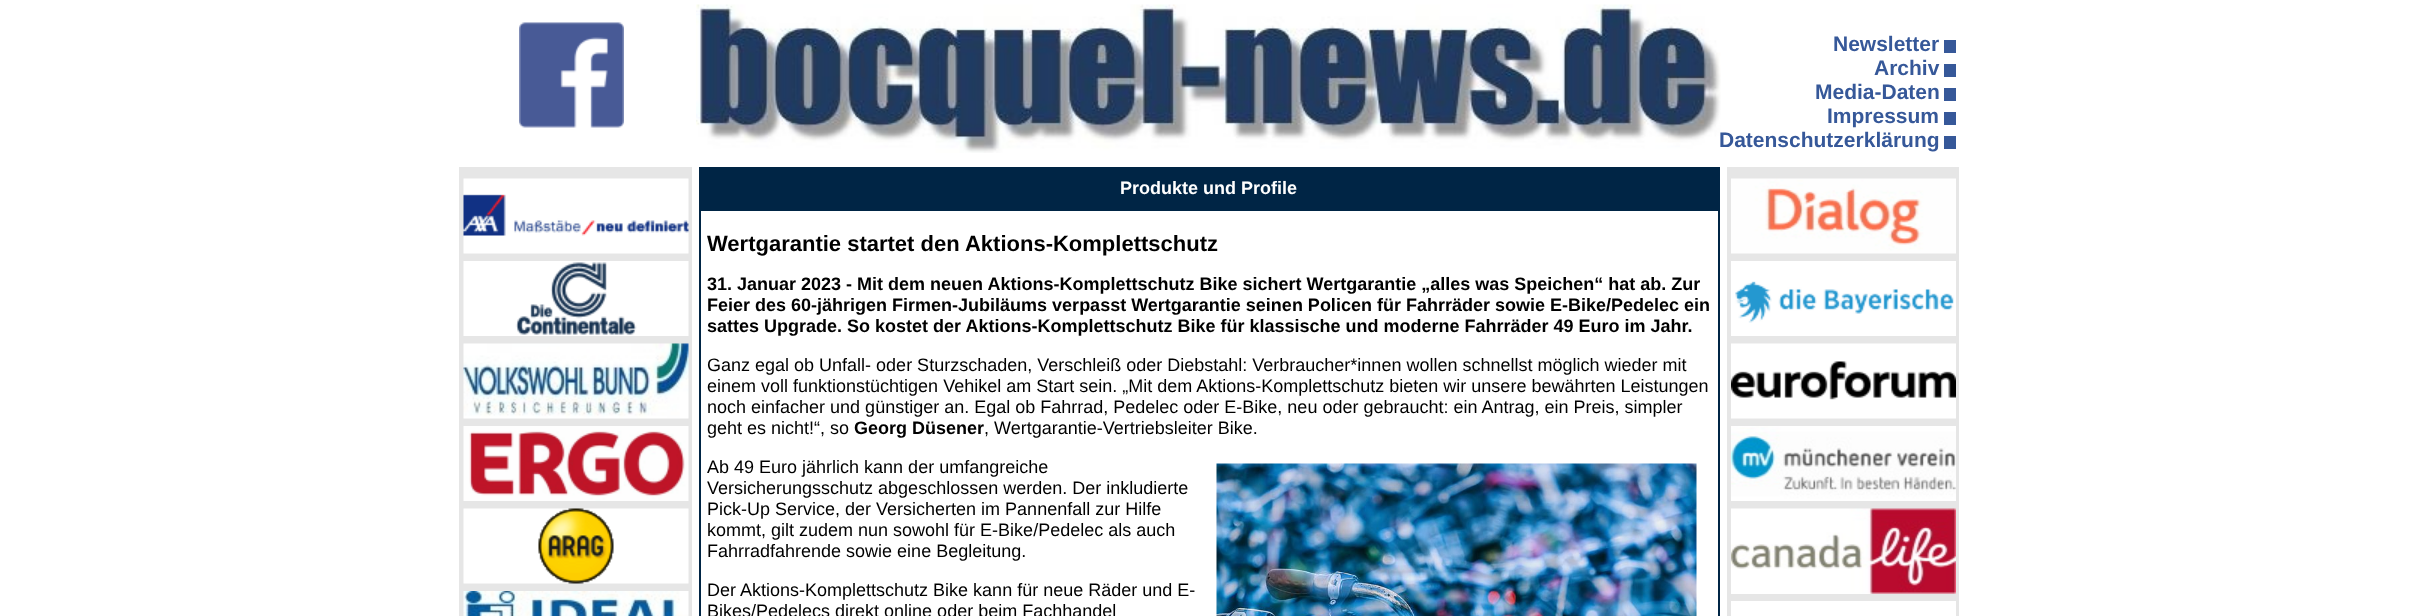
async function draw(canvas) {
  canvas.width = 2417;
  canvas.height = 616;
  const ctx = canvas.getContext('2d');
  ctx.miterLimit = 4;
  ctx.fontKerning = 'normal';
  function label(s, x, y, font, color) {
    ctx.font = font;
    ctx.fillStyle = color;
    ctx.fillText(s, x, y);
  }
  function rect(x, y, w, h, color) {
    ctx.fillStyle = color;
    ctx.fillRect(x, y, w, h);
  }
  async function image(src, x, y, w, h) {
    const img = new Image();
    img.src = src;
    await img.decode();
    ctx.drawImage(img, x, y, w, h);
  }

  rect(0, 0, 2417, 616, '#fff');
  await image('assets/img1.png', 519, 22, 105, 106);
  rect(1944, 40, 12, 13, '#365899');
  label('Newsletter', 1833, 51, 'bold 21px Liberation Sans', '#365899');
  rect(1944, 64, 12, 13, '#365899');
  label('Archiv', 1874, 75, 'bold 21px Liberation Sans', '#365899');
  rect(1944, 88, 12, 13, '#365899');
  label('Media-Daten', 1815, 99, 'bold 21px Liberation Sans', '#365899');
  rect(1944, 112, 12, 13, '#365899');
  label('Impressum', 1827, 123, 'bold 21px Liberation Sans', '#365899');
  rect(1944, 136, 12, 13, '#365899');
  await image('assets/img8.png', 696, 4, 1025, 149);
  label('Datenschutzerklärung', 1719, 147, 'bold 21px Liberation Sans', '#365899');
  rect(459, 167, 233, 449, '#e6e6e6');
  await image('assets/img2.png', 463, 178, 226, 76);
  await image('assets/img3.png', 463, 261, 226, 75);
  await image('assets/img4.png', 463, 343, 226, 76);
  await image('assets/img5.png', 463, 426, 226, 75);
  await image('assets/img6.png', 463, 508, 226, 76);
  await image('assets/img7.png', 463, 591, 226, 25);
  rect(699, 167, 1020, 2, '#002545');
  rect(1718, 167, 2, 449, '#002545');
  rect(699, 167, 2, 449, '#002545');
  rect(701, 169, 1017, 40, '#002545');
  label('Produkte und Profile', 1120, 194, 'bold 18px Liberation Sans', '#fff');
  rect(699, 209, 1020, 2, '#002545');
  label('Wertgarantie startet den Aktions-Komplettschutz', 707, 251, 'bold 22px Liberation Sans', '#000');
  label('31. Januar 2023 - Mit dem neuen Aktions-Komplettschutz Bike sichert Wertgarantie „alles was Speichen“ hat ab. Zur', 707, 290, 'bold 18px Liberation Sans', '#000');
  label('Feier des 60-jährigen Firmen-Jubiläums verpasst Wertgarantie seinen Policen für Fahrräder sowie E-Bike/Pedelec ein', 707, 311, 'bold 18px Liberation Sans', '#000');
  label('sattes Upgrade. So kostet der Aktions-Komplettschutz Bike für klassische und moderne Fahrräder 49 Euro im Jahr.', 707, 332, 'bold 18px Liberation Sans', '#000');
  label('Ganz egal ob Unfall- oder Sturzschaden, Verschleiß oder Diebstahl: Verbraucher*innen wollen schnellst möglich wieder mit', 707, 371, '18px Liberation Sans', '#000');
  label('einem voll funktionstüchtigen Vehikel am Start sein. „Mit dem Aktions-Komplettschutz bieten wir unsere bewährten Leistungen', 707, 392, '18px Liberation Sans', '#000');
  label('noch einfacher und günstiger an. Egal ob Fahrrad, Pedelec oder E-Bike, neu oder gebraucht: ein Antrag, ein Preis, simpler', 707, 413, '18px Liberation Sans', '#000');
  label('geht es nicht!“, so', 707, 434, '18px Liberation Sans', '#000');
  label('Georg Düsener', 854, 434, 'bold 18px Liberation Sans', '#000');
  label(', Wertgarantie-Vertriebsleiter Bike.', 984, 434, '18px Liberation Sans', '#000');
  label('Ab 49 Euro jährlich kann der umfangreiche', 707, 473, '18px Liberation Sans', '#000');
  await image('assets/img9.png', 1216, 463, 481, 153);
  label('Versicherungsschutz abgeschlossen werden. Der inkludierte', 707, 494, '18px Liberation Sans', '#000');
  label('Pick-Up Service, der Versicherten im Pannenfall zur Hilfe', 707, 515, '18px Liberation Sans', '#000');
  label('kommt, gilt zudem nun sowohl für E-Bike/Pedelec als auch', 707, 536, '18px Liberation Sans', '#000');
  label('Fahrradfahrende sowie eine Begleitung.', 707, 557, '18px Liberation Sans', '#000');
  label('Der Aktions-Komplettschutz Bike kann für neue Räder und E-', 707, 596, '18px Liberation Sans', '#000');
  label('Bikes/Pedelecs direkt online oder beim Fachhandel', 707, 617, '18px Liberation Sans', '#000');
  rect(1727, 167, 232, 449, '#e6e6e6');
  await image('assets/img10.png', 1731, 178, 225, 76);
  await image('assets/img11.png', 1731, 261, 225, 75);
  await image('assets/img12.png', 1731, 343, 225, 76);
  await image('assets/img13.png', 1731, 426, 225, 75);
  await image('assets/img14.png', 1731, 508, 225, 86);
  rect(1731, 601, 225, 15, '#fff');
}

draw(document.querySelector('canvas'));
